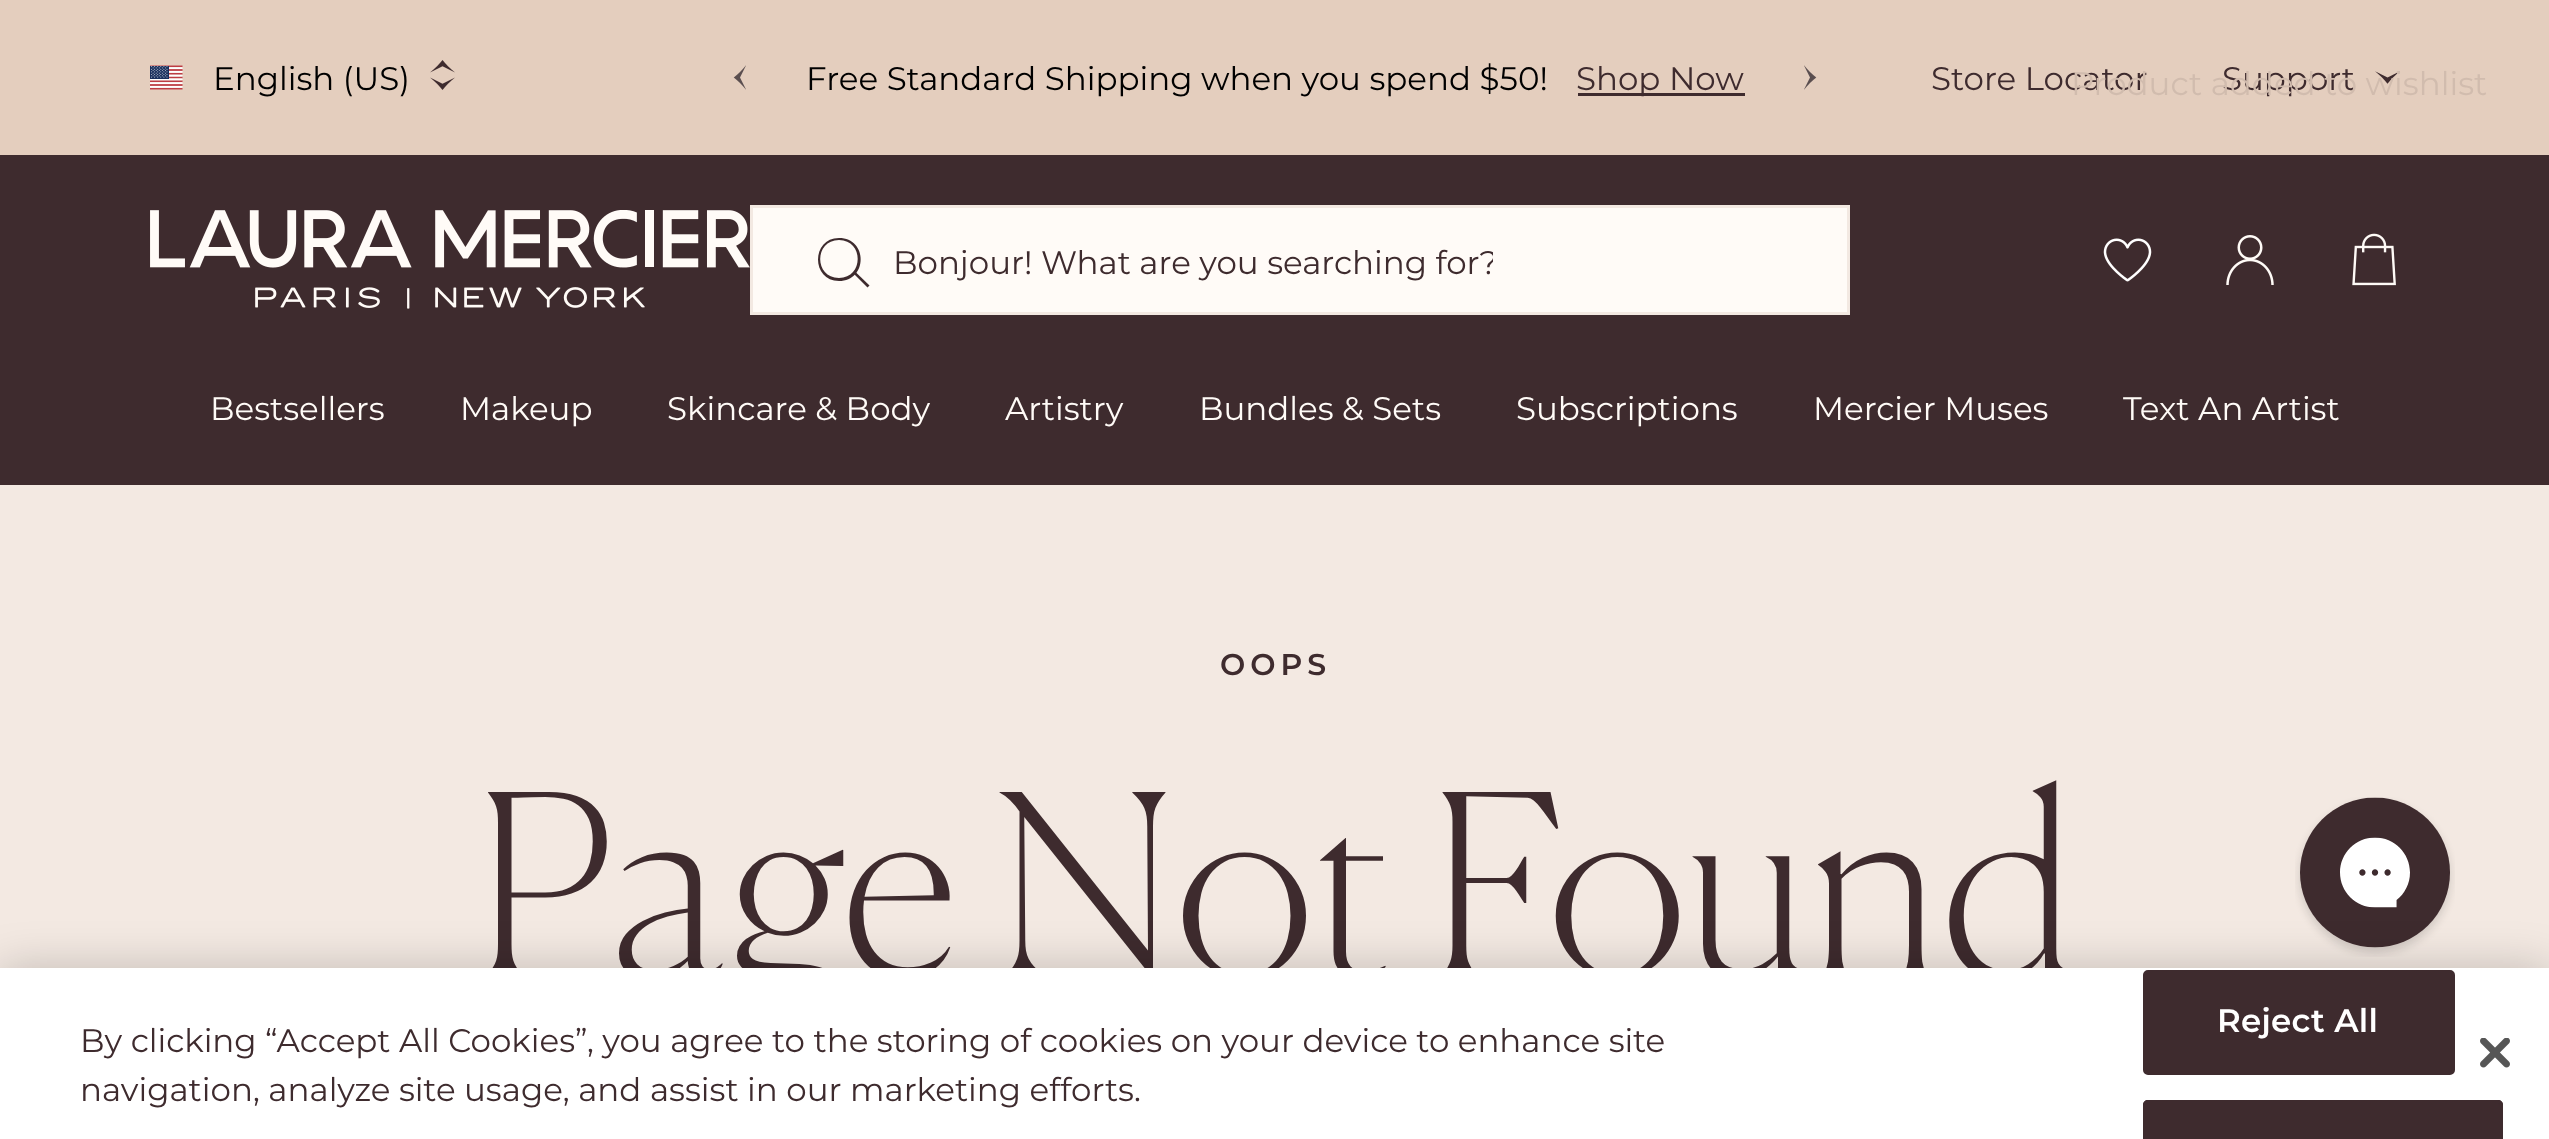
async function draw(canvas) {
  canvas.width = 2549;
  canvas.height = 1139;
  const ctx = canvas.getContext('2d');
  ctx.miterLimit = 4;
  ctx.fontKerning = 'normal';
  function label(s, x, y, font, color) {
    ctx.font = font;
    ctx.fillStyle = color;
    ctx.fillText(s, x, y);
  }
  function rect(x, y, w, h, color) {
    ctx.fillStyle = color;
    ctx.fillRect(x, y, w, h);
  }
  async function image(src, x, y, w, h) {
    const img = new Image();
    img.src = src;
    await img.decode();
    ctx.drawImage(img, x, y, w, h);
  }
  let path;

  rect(0, 0, 2549, 1139, '#f3e9e2');
  rect(0, 0, 2549, 155, '#e4cebe');
  await image('assets/img1.png', 150, 65, 33, 25);
  label('English (US)', 213, 90, '32.5px Montserrat', '#000');
  await image('assets/img2.png', 430, 60, 25, 30);
  await image('assets/img3.png', 733, 65, 13, 25);
  label('Free Standard Shipping when you spend $50!', 806, 90, '32.5px Montserrat', '#000');
  rect(1578, 93, 167, 3, '#3e2b2e');
  label('Shop Now', 1576, 90, '32.5px Montserrat', '#3e2b2e');
  await image('assets/img4.png', 1804, 65, 13, 25);
  label('Store Locator', 1931, 90, '32.5px Montserrat', '#3e2b2e');
  label('Support', 2222, 90, '32.5px Montserrat', '#3e2b2e');
  await image('assets/img5.png', 2375, 71, 25, 13);
  rect(0, 155, 2549, 330, '#3e2b2e');
  await image('assets/img6.png', 150, 210, 600, 99);
  ctx.fillStyle = '#fffbf7';
  ctx.beginPath();
  ctx.rect(751.5, 206.5, 1097, 107);
  ctx.fill();
  ctx.strokeStyle = '#f3e9e2';
  ctx.lineWidth = 3;
  ctx.stroke();
  ctx.fillStyle = '#3e2b2e';
  path = new Path2D('M839 278C864 278 864 240 839 240C814 240 814 278 839 278ZM839 281C868 281 868 238 839 238C811 238 811 281 839 281Z');
  ctx.fill(path, 'evenodd');
  path = new Path2D('M867.5 287.5L854 274L855.5 272L869.5 285.5Z');
  ctx.fill(path, 'evenodd');
  ctx.save();
  ctx.beginPath();
  ctx.rect(893, 243, 600, 40);
  ctx.clip();
  label('Bonjour! What are you searching for?', 893, 274, '32.5px Montserrat', '#3e2b2e');
  ctx.restore();
  await image('assets/img7.png', 2103, 238, 49, 44);
  await image('assets/img8.png', 2226, 235, 48, 50);
  await image('assets/img9.png', 2352, 233, 44, 53);
  label('Bestsellers', 210, 420, '32.5px Montserrat', '#fffbf7');
  label('Makeup', 460, 420, '32.5px Montserrat', '#fffbf7');
  label('Skincare & Body', 667, 420, '32.5px Montserrat', '#fffbf7');
  label('Artistry', 1005, 420, '32.5px Montserrat', '#fffbf7');
  label('Bundles & Sets', 1199, 420, '32.5px Montserrat', '#fffbf7');
  label('Subscriptions', 1516, 420, '32.5px Montserrat', '#fffbf7');
  label('Mercier Muses', 1813, 420, '32.5px Montserrat', '#fffbf7');
  label('Text An Artist', 2123, 420, '32.5px Montserrat', '#fffbf7');
  label('Product added to wishlist', 2071, 95, '32.5px Montserrat', '#d1bcae');
  ctx.letterSpacing = '5px';
  label('OOPS', 1220, 675, '600 30px Montserrat', '#3e2b2e');
  ctx.letterSpacing = '0px';
  label('Page Not Found', 475, 975, '100 250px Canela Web', '#3e2b2e');
  await image('assets/img10.png', 2295, 797, 160, 160);
  ctx.fillStyle = '#00000033';
  ctx.filter = 'blur(22.5px)';
  ctx.beginPath();
  ctx.rect(0, 968, 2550, 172);
  ctx.fill();
  ctx.filter = 'none';
  rect(0, 968, 2549, 171, '#fff');
  ctx.fillStyle = '#3e2b2e';
  ctx.beginPath();
  ctx.roundRect(2144.5, 971.5, 309, 102, 3.5);
  ctx.fill();
  ctx.strokeStyle = '#3e2b2e';
  ctx.stroke();
  ctx.letterSpacing = '0.25px';
  label('Reject All', 2217, 1032, '600 32.5px Montserrat', '#fff');
  ctx.fillStyle = '#3e2b2e';
  path = new Path2D('M2148 1100H2498C2501 1100 2503 1102 2503 1105V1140H2143V1105C2143 1102 2145 1100 2148 1100Z');
  ctx.fill(path);
  ctx.beginPath();
  ctx.roundRect(2144.5, 1101.5, 357, 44, 3.5);
  ctx.stroke();
  ctx.letterSpacing = '0px';
  label('By clicking “Accept All Cookies”, you agree to the storing of cookies on your device to enhance site', 80, 1052, '32.5px Montserrat', '#3e2b2e');
  label('navigation, analyze site usage, and assist in our marketing efforts.', 80, 1101, '32.5px Montserrat', '#3e2b2e');
  await image('assets/img11.png', 2480, 1038, 30, 30);
}

draw(document.querySelector('canvas'));
